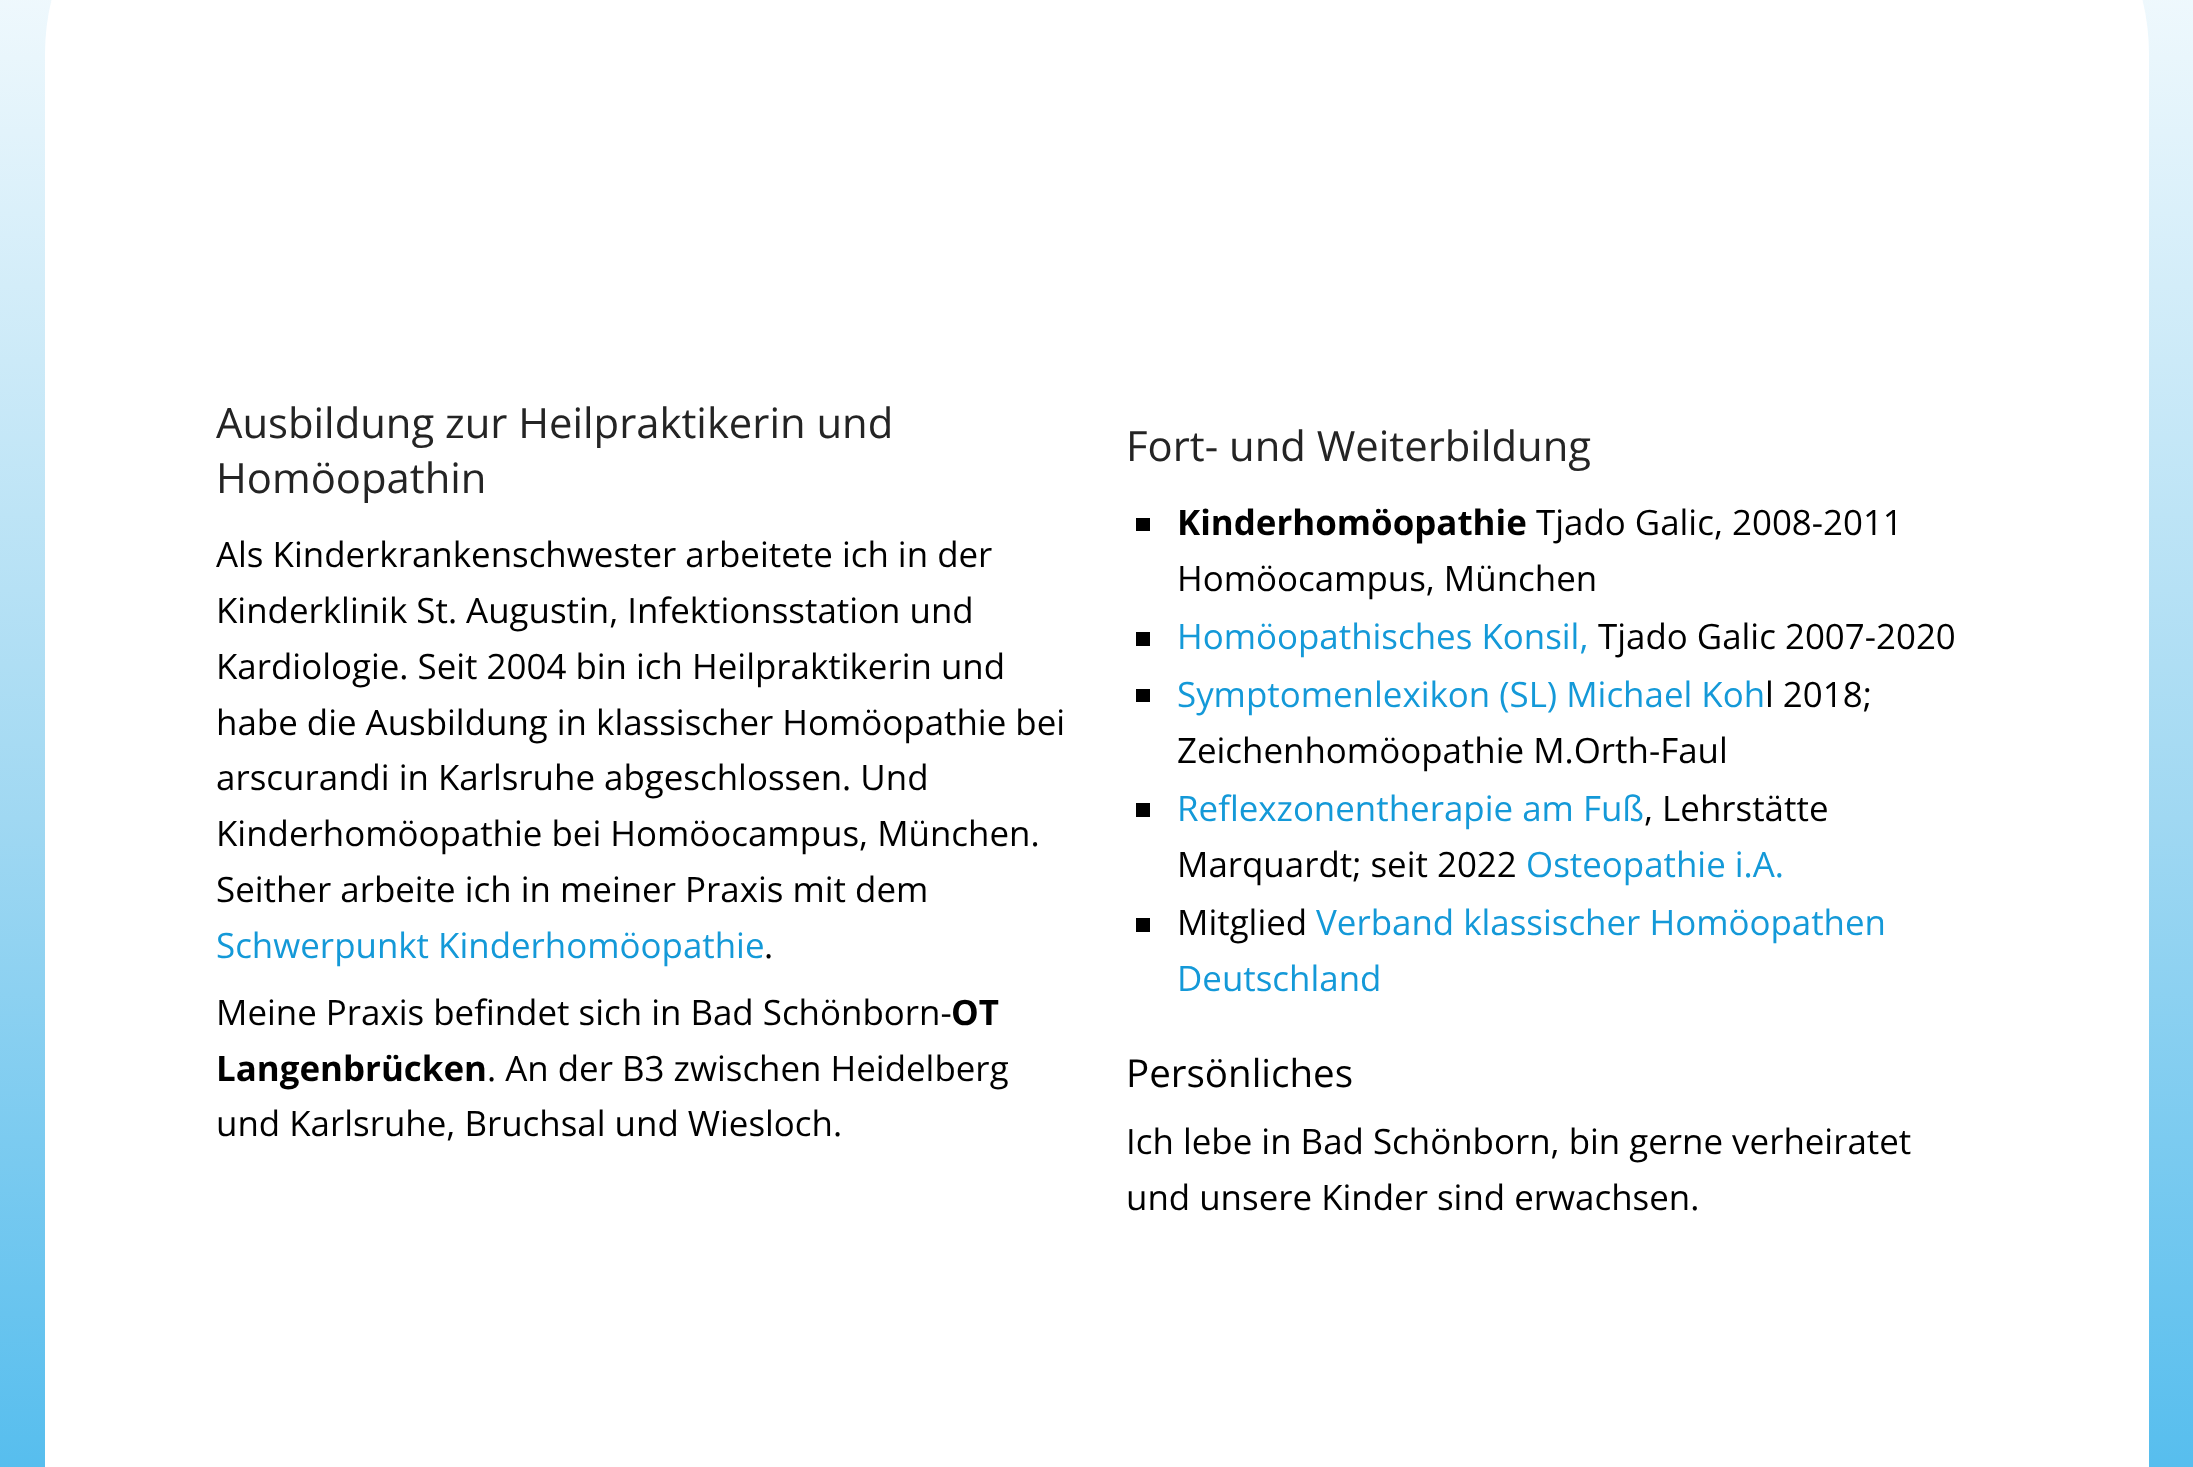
async function draw(canvas) {
  canvas.width = 2193;
  canvas.height = 1467;
  const ctx = canvas.getContext('2d');
  ctx.miterLimit = 4;
  ctx.fontKerning = 'normal';
  function label(s, x, y, font, color) {
    ctx.font = font;
    ctx.fillStyle = color;
    ctx.fillText(s, x, y);
  }
  function rect(x, y, w, h, color) {
    ctx.fillStyle = color;
    ctx.fillRect(x, y, w, h);
  }
  let gradient, path;

  rect(0, 0, 2193, 1467, '#fff');
  gradient = ctx.createLinearGradient(1097, 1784, 1097, -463);
  gradient.addColorStop(0, '#33b1ec');
  gradient.addColorStop(0.43, '#a0d8f2');
  gradient.addColorStop(0.87, '#fff');
  ctx.fillStyle = gradient;
  ctx.fillRect(0, 0, 2193, 1467);
  ctx.fillStyle = '#fff';
  path = new Path2D('M270-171H1924C2048.5-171 2149-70.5 2149 54V954H45V54C45-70.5 145.5-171 270-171Z');
  ctx.fill(path);
  rect(45, 954, 2104, 513, '#fff');
  label('Ausbildung zur Heilpraktikerin und', 216, 438, '41.8px Open Sans', '#242424');
  label('Homöopathin', 216, 493, '41.8px Open Sans', '#242424');
  label('Als Kinderkrankenschwester arbeitete ich in der', 216, 567, '34.9px Open Sans', '#000');
  label('Kinderklinik St. Augustin, Infektionsstation und', 216, 623, '34.9px Open Sans', '#000');
  label('Kardiologie. Seit 2004 bin ich Heilpraktikerin und', 216, 679, '34.9px Open Sans', '#000');
  label('habe die Ausbildung in klassischer Homöopathie bei', 216, 735, '34.9px Open Sans', '#000');
  label('arscurandi in Karlsruhe abgeschlossen. Und', 216, 790, '34.9px Open Sans', '#000');
  label('Kinderhomöopathie bei Homöocampus, München.', 216, 846, '34.9px Open Sans', '#000');
  label('Seither arbeite ich in meiner Praxis mit dem', 216, 902, '34.9px Open Sans', '#000');
  label('Schwerpunkt Kinderhomöopathie', 216, 958, '34.9px Open Sans', '#1499d8');
  label('.', 764, 958, '34.9px Open Sans', '#000');
  label('Meine Praxis befindet sich in Bad Schönborn-', 216, 1025, '34.9px Open Sans', '#000');
  label('OT', 951, 1025, 'bold 34.9px Open Sans', '#000');
  label('Langenbrücken', 216, 1081, 'bold 34.9px Open Sans', '#000');
  label('. An der B3 zwischen Heidelberg', 487, 1081, '34.9px Open Sans', '#000');
  label('und Karlsruhe, Bruchsal und Wiesloch.', 216, 1136, '34.9px Open Sans', '#000');
  label('Fort- und Weiterbildung', 1126, 461, '41.8px Open Sans', '#242424');
  rect(1136, 518, 14, 13, '#000');
  label('Kinderhomöopathie', 1177, 535, 'bold 34.9px Open Sans', '#000');
  label('Tjado Galic, 2008-2011', 1536, 535, '34.9px Open Sans', '#000');
  label('Homöocampus, München', 1177, 591, '34.9px Open Sans', '#000');
  rect(1136, 632, 14, 14, '#000');
  label('Homöopathisches Konsil,', 1177, 649, '34.9px Open Sans', '#1499d8');
  label('Tjado Galic 2007-2020', 1598, 649, '34.9px Open Sans', '#000');
  rect(1136, 689, 14, 13, '#000');
  label('Symptomenlexikon (SL) Michael Koh', 1177, 707, '34.9px Open Sans', '#1499d8');
  label('l 2018;', 1765, 707, '34.9px Open Sans', '#000');
  label('Zeichenhomöopathie M.Orth-Faul', 1177, 763, '34.9px Open Sans', '#000');
  rect(1136, 803, 14, 14, '#000');
  label('Reflexzonentherapie am Fuß', 1177, 821, '34.9px Open Sans', '#1499d8');
  label(', Lehrstätte', 1644, 821, '34.9px Open Sans', '#000');
  label('Marquardt; seit 2022', 1177, 877, '34.9px Open Sans', '#000');
  label('Osteopathie i.A.', 1526, 877, '34.9px Open Sans', '#1499d8');
  rect(1136, 918, 14, 14, '#000');
  label('Mitglied', 1177, 935, '34.9px Open Sans', '#000');
  label('Verband klassischer Homöopathen', 1316, 935, '34.9px Open Sans', '#1499d8');
  label('Deutschland', 1177, 991, '34.9px Open Sans', '#1499d8');
  label('Persönliches', 1126, 1087, '38.5px Open Sans', '#000');
  label('Ich lebe in Bad Schönborn, bin gerne verheiratet', 1126, 1154, '34.9px Open Sans', '#000');
  label('und unsere Kinder sind erwachsen.', 1126, 1210, '34.9px Open Sans', '#000');
}

draw(document.querySelector('canvas'));
